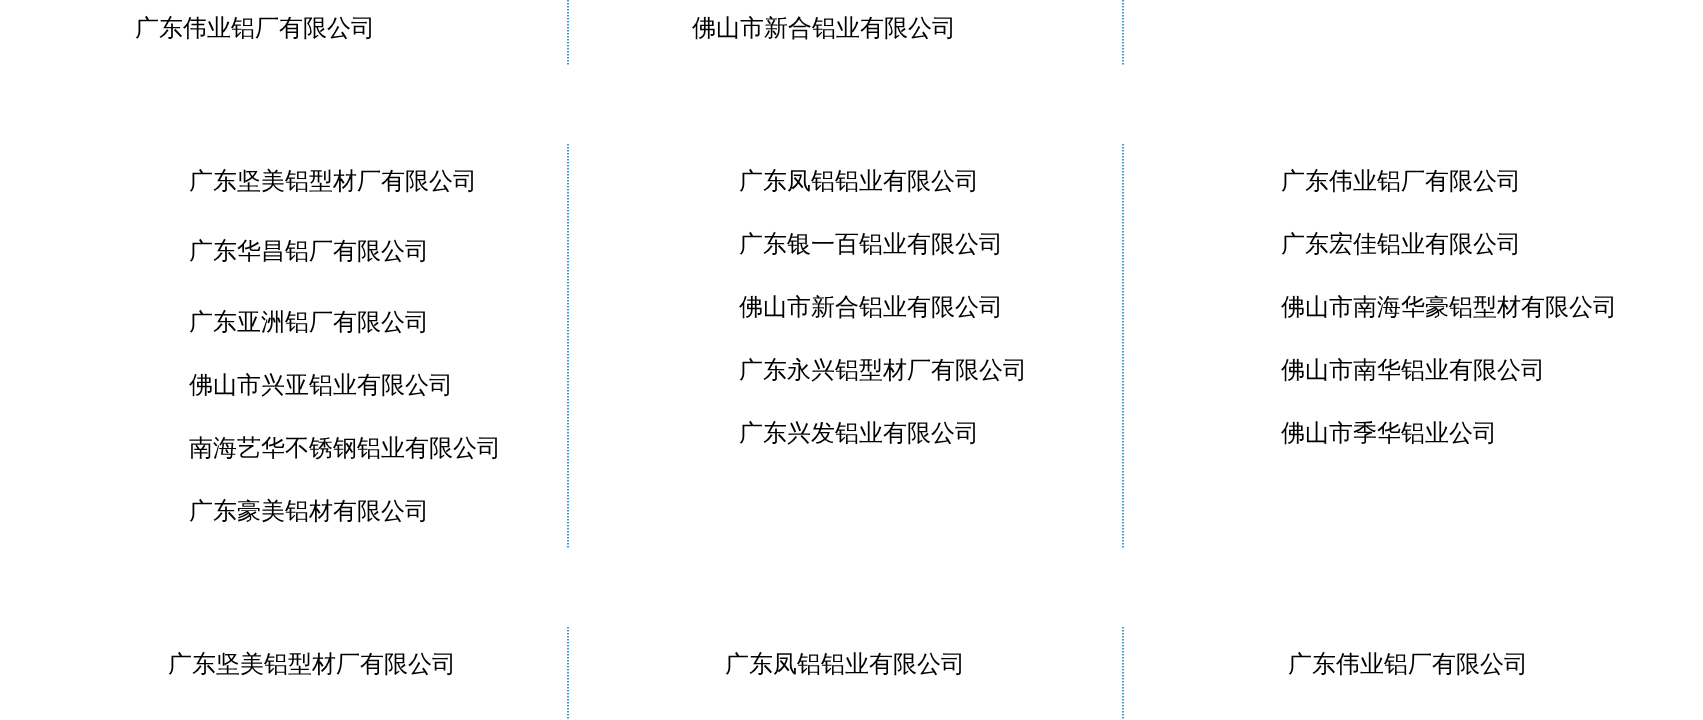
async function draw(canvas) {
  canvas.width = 1703;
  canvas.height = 720;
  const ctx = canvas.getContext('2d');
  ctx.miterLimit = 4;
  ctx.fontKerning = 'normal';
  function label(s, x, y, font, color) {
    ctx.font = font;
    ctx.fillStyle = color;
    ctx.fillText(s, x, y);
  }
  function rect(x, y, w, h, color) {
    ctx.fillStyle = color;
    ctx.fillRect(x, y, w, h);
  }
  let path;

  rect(0, 0, 1703, 720, '#fff');
  path = new Path2D('M568-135V66');
  ctx.strokeStyle = '#0577c1';
  ctx.lineWidth = 1.5;
  ctx.setLineDash([1.5, 1.5]);
  ctx.stroke(path);
  label('广东伟业铝厂有限公司', 135, 36, '500 24px WenQuanYi Zen Hei', '#000');
  path = new Path2D('M1123-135V66');
  ctx.stroke(path);
  label('佛山市新合铝业有限公司', 692, 36, '500 24px WenQuanYi Zen Hei', '#000');
  path = new Path2D('M568 144V549');
  ctx.stroke(path);
  label('广东坚美铝型材厂有限公司', 189, 189, '500 24px WenQuanYi Zen Hei', '#000');
  label('广东华昌铝厂有限公司', 189, 259, '500 24px WenQuanYi Zen Hei', '#000');
  label('广东亚洲铝厂有限公司', 189, 330, '500 24px WenQuanYi Zen Hei', '#000');
  label('佛山市兴亚铝业有限公司', 189, 393, '500 24px WenQuanYi Zen Hei', '#000');
  label('南海艺华不锈钢铝业有限公司', 189, 456, '500 24px WenQuanYi Zen Hei', '#000');
  label('广东豪美铝材有限公司', 189, 519, '500 24px WenQuanYi Zen Hei', '#000');
  path = new Path2D('M1123 144V549');
  ctx.stroke(path);
  label('广东凤铝铝业有限公司', 739, 189, '500 24px WenQuanYi Zen Hei', '#000');
  label('广东银一百铝业有限公司', 739, 252, '500 24px WenQuanYi Zen Hei', '#000');
  label('佛山市新合铝业有限公司', 739, 315, '500 24px WenQuanYi Zen Hei', '#000');
  label('广东永兴铝型材厂有限公司', 739, 378, '500 24px WenQuanYi Zen Hei', '#000');
  label('广东兴发铝业有限公司', 739, 441, '500 24px WenQuanYi Zen Hei', '#000');
  label('广东伟业铝厂有限公司', 1281, 189, '500 24px WenQuanYi Zen Hei', '#000');
  label('广东宏佳铝业有限公司', 1281, 252, '500 24px WenQuanYi Zen Hei', '#000');
  label('佛山市南海华豪铝型材有限公司', 1281, 315, '500 24px WenQuanYi Zen Hei', '#000');
  label('佛山市南华铝业有限公司', 1281, 378, '500 24px WenQuanYi Zen Hei', '#000');
  label('佛山市季华铝业公司', 1281, 441, '500 24px WenQuanYi Zen Hei', '#000');
  path = new Path2D('M568 627V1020');
  ctx.stroke(path);
  label('广东坚美铝型材厂有限公司', 168, 672, '500 24px WenQuanYi Zen Hei', '#000');
  path = new Path2D('M1123 627V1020');
  ctx.stroke(path);
  label('广东凤铝铝业有限公司', 725, 672, '500 24px WenQuanYi Zen Hei', '#000');
  label('广东伟业铝厂有限公司', 1288, 672, '500 24px WenQuanYi Zen Hei', '#000');
}

draw(document.querySelector('canvas'));
